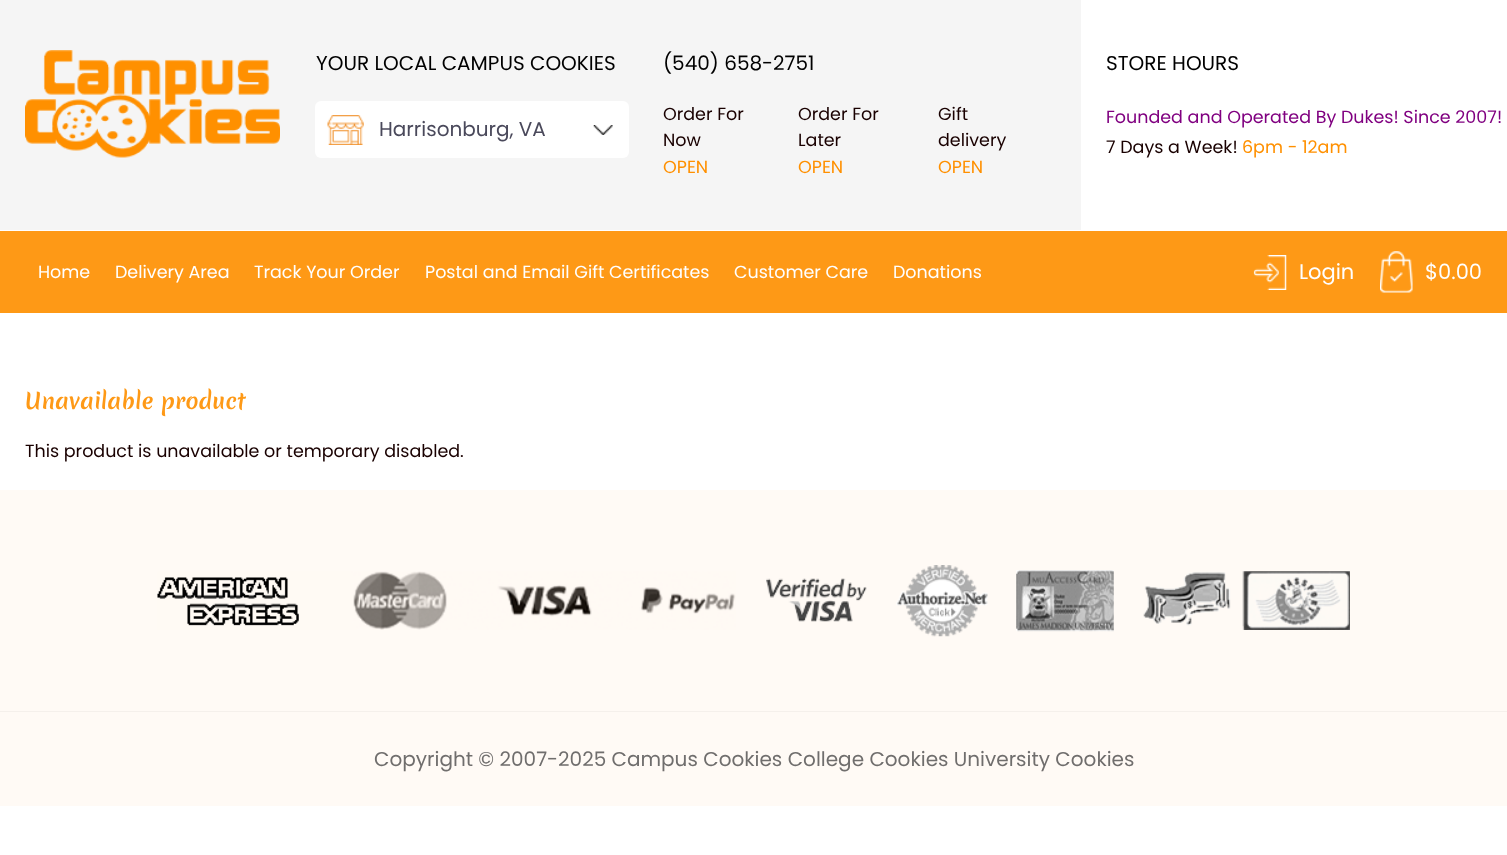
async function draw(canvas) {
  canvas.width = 1507;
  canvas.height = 855;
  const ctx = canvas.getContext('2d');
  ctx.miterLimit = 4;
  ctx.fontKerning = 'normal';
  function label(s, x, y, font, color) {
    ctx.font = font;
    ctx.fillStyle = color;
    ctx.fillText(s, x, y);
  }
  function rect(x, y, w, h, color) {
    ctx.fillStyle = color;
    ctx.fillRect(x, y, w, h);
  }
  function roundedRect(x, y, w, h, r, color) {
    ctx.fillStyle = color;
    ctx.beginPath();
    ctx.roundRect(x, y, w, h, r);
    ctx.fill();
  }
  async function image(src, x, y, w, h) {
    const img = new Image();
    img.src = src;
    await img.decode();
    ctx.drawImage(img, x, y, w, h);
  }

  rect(0, 0, 1507, 855, '#fff');
  rect(0, 0, 1081, 230, '#f5f5f5');
  await image('assets/img1.png', 25, 50, 255, 108);
  label('YOUR LOCAL CAMPUS COOKIES', 316, 70, '20px Poppins', '#000');
  roundedRect(315, 101, 314, 57, 6, '#fff');
  await image('assets/img2.png', 327, 115, 37, 30);
  await image('assets/img3.png', 593, 125, 20, 10);
  label('Harrisonburg, VA', 379, 136, '20px Poppins', '#4a495b');
  label('(540) 658-2751', 663, 70, '20px Poppins', '#000');
  label('Order For', 663, 120, '17.5px Poppins', '#190000');
  label('Now', 663, 146, '17.5px Poppins', '#190000');
  label('OPEN', 663, 173, '17.5px Poppins', '#ff9000');
  label('Order For', 798, 120, '17.5px Poppins', '#190000');
  label('Later', 798, 146, '17.5px Poppins', '#190000');
  label('OPEN', 798, 173, '17.5px Poppins', '#ff9000');
  label('Gift', 938, 120, '17.5px Poppins', '#190000');
  label('delivery', 938, 146, '17.5px Poppins', '#190000');
  label('OPEN', 938, 173, '17.5px Poppins', '#ff9000');
  label('STORE HOURS', 1106, 70, '20px Poppins', '#000');
  label('Founded and Operated By Dukes! Since 2007!', 1106, 123, '17.5px Poppins', '#800080');
  label('7 Days a Week!', 1106, 153, '17.5px Poppins', '#190000');
  label('6pm - 12am', 1242, 153, '17.5px Poppins', '#ff9000');
  rect(0, 231, 1507, 82, '#fe9916');
  label('Home', 38, 278, '17.5px Poppins', '#fff');
  label('Delivery Area', 115, 278, '17.5px Poppins', '#fff');
  label('Track Your Order', 254, 278, '17.5px Poppins', '#fff');
  label('Postal and Email Gift Certificates', 425, 278, '17.5px Poppins', '#fff');
  label('Customer Care', 734, 278, '17.5px Poppins', '#fff');
  label('Donations', 893, 278, '17.5px Poppins', '#fff');
  await image('assets/img4.png', 1253, 255, 34, 35);
  label('Login', 1299, 279, '21px Poppins', '#fff');
  await image('assets/img5.png', 1380, 251, 33, 42);
  label('$0.00', 1425, 279, '21px Poppins', '#fff');
  label('Unavailable product', 25, 409, '21.75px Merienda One', '#fe9916');
  label('This product is unavailable or temporary disabled.', 25, 457, '17.5px Poppins', '#190000');
  rect(0, 490, 1507, 316, '#fffaf5');
  rect(0, 711, 1507, 1, '#f5f0eb');
  await image('assets/img6.png', 157, 571, 579, 59);
  await image('assets/img7.png', 766, 578, 101, 44);
  await image('assets/img8.png', 896, 565, 92, 72);
  await image('assets/img9.png', 1016, 570, 98, 62);
  await image('assets/img10.png', 1143, 571, 207, 59);
  label('Copyright © 2007-2025 Campus Cookies College Cookies University Cookies', 374, 766, '20px Poppins', '#706e6d');
}

draw(document.querySelector('canvas'));
